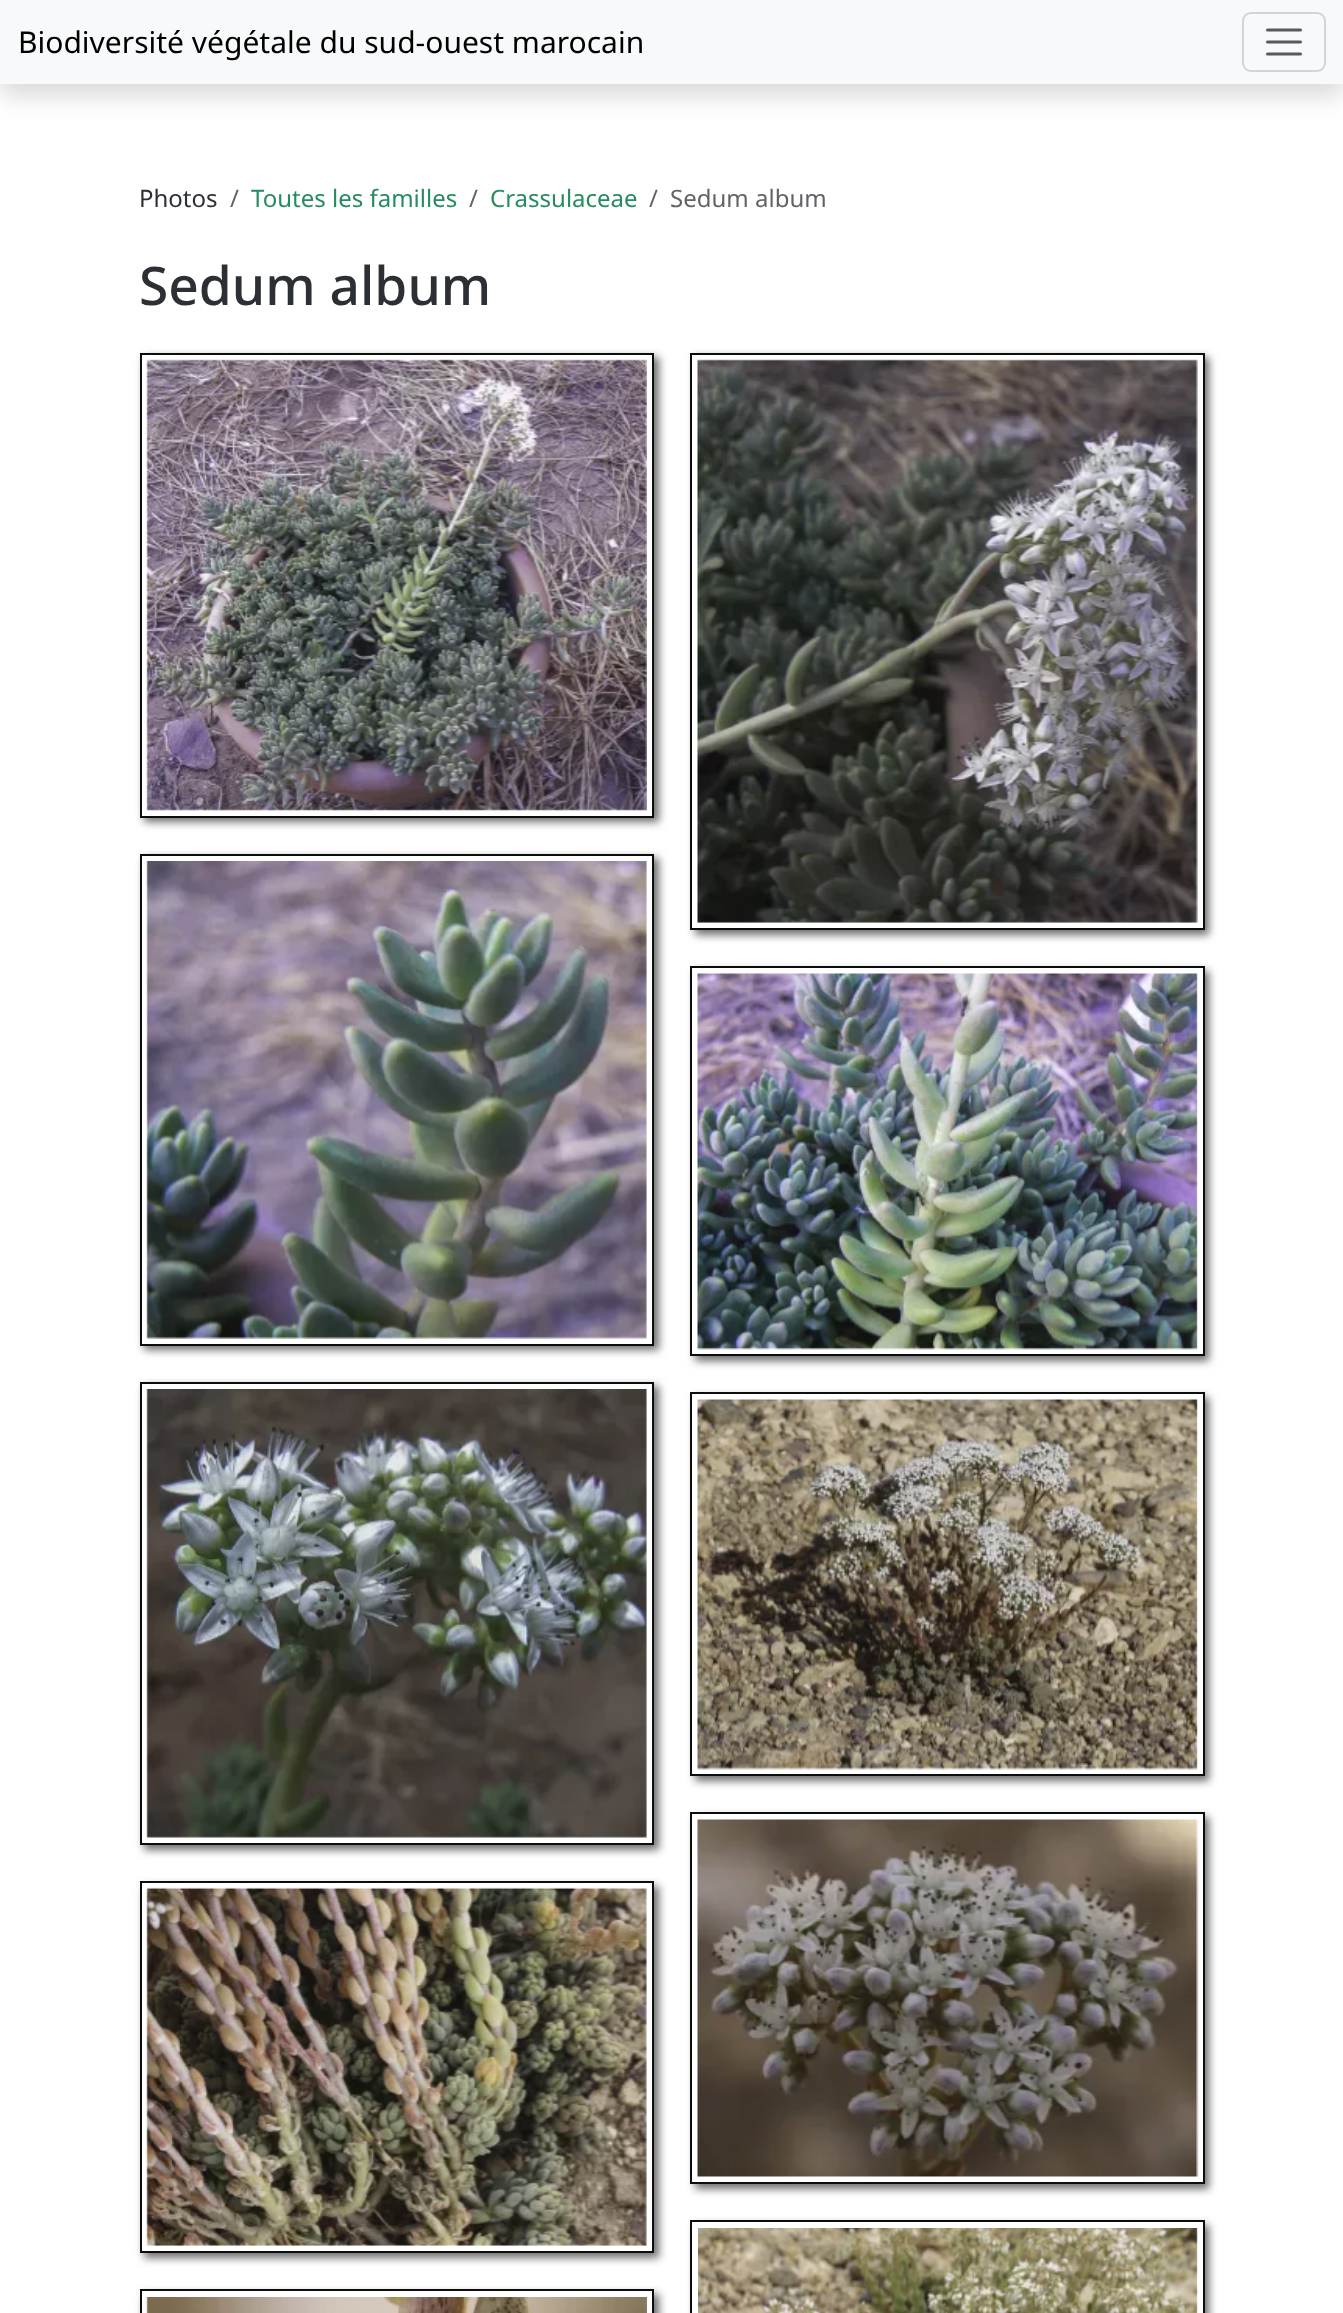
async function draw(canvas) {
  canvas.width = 1343;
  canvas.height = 2313;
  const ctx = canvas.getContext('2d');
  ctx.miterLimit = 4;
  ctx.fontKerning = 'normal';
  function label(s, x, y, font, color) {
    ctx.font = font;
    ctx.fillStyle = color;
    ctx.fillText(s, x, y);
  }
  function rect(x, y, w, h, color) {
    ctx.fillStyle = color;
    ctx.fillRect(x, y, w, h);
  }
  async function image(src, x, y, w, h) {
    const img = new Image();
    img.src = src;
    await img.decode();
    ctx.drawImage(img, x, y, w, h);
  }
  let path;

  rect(0, 0, 1343, 2313, '#fff');
  ctx.fillStyle = '#00000026';
  ctx.filter = 'blur(12px)';
  ctx.beginPath();
  ctx.rect(0, 12, 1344, 84);
  ctx.fill();
  ctx.filter = 'none';
  rect(0, 0, 1343, 84, '#f8f9fa');
  label('Biodiversité végétale du sud-ouest marocain', 18, 53, '30px Noto Sans', '#000');
  ctx.beginPath();
  ctx.roundRect(1243, 13, 82, 58, 8);
  ctx.strokeStyle = '#d3d4d5';
  ctx.lineWidth = 2;
  ctx.stroke();
  path = new Path2D('M1267.5 30H1300.5M1267.5 42H1300.5M1267.5 54H1300.5');
  ctx.strokeStyle = '#575a5d';
  ctx.lineWidth = 3;
  ctx.lineCap = 'round';
  ctx.stroke(path);
  label('Photos', 139, 207, '24px Noto Sans', '#2c3034');
  label('/', 230, 207, '24px Noto Sans', '#616467');
  label('Toutes les familles', 251, 207, '24px Noto Sans', '#258d5d');
  label('/', 469, 207, '24px Noto Sans', '#616467');
  label('Crassulaceae', 490, 207, '24px Noto Sans', '#258d5d');
  label('/', 649, 207, '24px Noto Sans', '#616467');
  label('Sedum album', 670, 207, '24px Noto Sans', '#616467');
  label('Sedum album', 139, 305, '500 53.25px Noto Sans', '#2c3034');
  ctx.save();
  path = new Path2D('M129 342H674V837H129ZM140 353H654V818H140Z');
  ctx.clip(path, 'evenodd');
  ctx.fillStyle = '#6d6d6d';
  ctx.filter = 'blur(4.5px)';
  ctx.beginPath();
  ctx.rect(144, 357, 515, 465);
  ctx.fill();
  ctx.filter = 'none';
  ctx.restore();
  ctx.strokeStyle = '#0d0d0d';
  ctx.lineWidth = 2;
  ctx.strokeRect(141, 354, 512, 463);
  await image('assets/img1.png', 146, 359, 501, 452);
  ctx.save();
  path = new Path2D('M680 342H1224V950H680ZM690 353H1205V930H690Z');
  ctx.clip(path, 'evenodd');
  ctx.fillStyle = '#6d6d6d';
  ctx.filter = 'blur(4.5px)';
  ctx.beginPath();
  ctx.rect(695, 357, 514, 578);
  ctx.fill();
  ctx.filter = 'none';
  ctx.restore();
  ctx.strokeRect(691, 354, 513, 575);
  await image('assets/img2.png', 697, 359, 501, 564);
  ctx.save();
  path = new Path2D('M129 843H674V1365H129ZM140 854H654V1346H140Z');
  ctx.clip(path, 'evenodd');
  ctx.fillStyle = '#6d6d6d';
  ctx.filter = 'blur(4.5px)';
  ctx.beginPath();
  ctx.rect(144, 858, 515, 492);
  ctx.fill();
  ctx.filter = 'none';
  ctx.restore();
  ctx.strokeRect(141, 855, 512, 490);
  await image('assets/img3.png', 146, 861, 501, 478);
  ctx.save();
  path = new Path2D('M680 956H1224V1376H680ZM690 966H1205V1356H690Z');
  ctx.clip(path, 'evenodd');
  ctx.fillStyle = '#6d6d6d';
  ctx.filter = 'blur(4.5px)';
  ctx.beginPath();
  ctx.rect(695, 971, 514, 390);
  ctx.fill();
  ctx.filter = 'none';
  ctx.restore();
  ctx.strokeRect(691, 967, 513, 388);
  await image('assets/img4.png', 697, 973, 501, 377);
  ctx.save();
  path = new Path2D('M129 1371H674V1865H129ZM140 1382H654V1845H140Z');
  ctx.clip(path, 'evenodd');
  ctx.fillStyle = '#6d6d6d';
  ctx.filter = 'blur(4.5px)';
  ctx.beginPath();
  ctx.rect(144, 1386, 515, 464);
  ctx.fill();
  ctx.filter = 'none';
  ctx.restore();
  ctx.strokeRect(141, 1383, 512, 461);
  await image('assets/img5.png', 146, 1389, 501, 449);
  ctx.save();
  path = new Path2D('M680 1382H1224V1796H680ZM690 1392H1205V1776H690Z');
  ctx.clip(path, 'evenodd');
  ctx.fillStyle = '#6d6d6d';
  ctx.filter = 'blur(4.5px)';
  ctx.beginPath();
  ctx.rect(695, 1397, 514, 384);
  ctx.fill();
  ctx.filter = 'none';
  ctx.restore();
  ctx.strokeRect(691, 1393, 513, 382);
  await image('assets/img6.png', 697, 1399, 501, 371);
  ctx.save();
  path = new Path2D('M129 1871H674V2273H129ZM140 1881H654V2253H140Z');
  ctx.clip(path, 'evenodd');
  ctx.fillStyle = '#6d6d6d';
  ctx.filter = 'blur(4.5px)';
  ctx.beginPath();
  ctx.rect(144, 1886, 515, 372);
  ctx.fill();
  ctx.filter = 'none';
  ctx.restore();
  ctx.strokeRect(141, 1882, 512, 370);
  await image('assets/img7.png', 146, 1887, 501, 359);
  ctx.save();
  path = new Path2D('M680 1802H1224V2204H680ZM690 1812H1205V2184H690Z');
  ctx.clip(path, 'evenodd');
  ctx.fillStyle = '#6d6d6d';
  ctx.filter = 'blur(4.5px)';
  ctx.beginPath();
  ctx.rect(695, 1817, 514, 372);
  ctx.fill();
  ctx.filter = 'none';
  ctx.restore();
  ctx.strokeRect(691, 1813, 513, 370);
  await image('assets/img8.png', 697, 1819, 502, 358);
  ctx.save();
  path = new Path2D('M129 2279H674V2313H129ZM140 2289H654V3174H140Z');
  ctx.clip(path, 'evenodd');
  ctx.fillStyle = '#6d6d6d';
  ctx.filter = 'blur(4.5px)';
  ctx.beginPath();
  ctx.rect(144, 2294, 515, 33);
  ctx.fill();
  ctx.filter = 'none';
  ctx.restore();
  ctx.strokeRect(141, 2290, 512, 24);
  await image('assets/img9.png', 146, 2297, 501, 16);
  ctx.save();
  path = new Path2D('M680 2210H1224V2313H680ZM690 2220H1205V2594H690Z');
  ctx.clip(path, 'evenodd');
  ctx.fillStyle = '#6d6d6d';
  ctx.filter = 'blur(4.5px)';
  ctx.beginPath();
  ctx.rect(695, 2225, 514, 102);
  ctx.fill();
  ctx.filter = 'none';
  ctx.restore();
  ctx.strokeRect(691, 2221, 513, 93);
  await image('assets/img10.png', 698, 2228, 500, 85);
}

draw(document.querySelector('canvas'));
